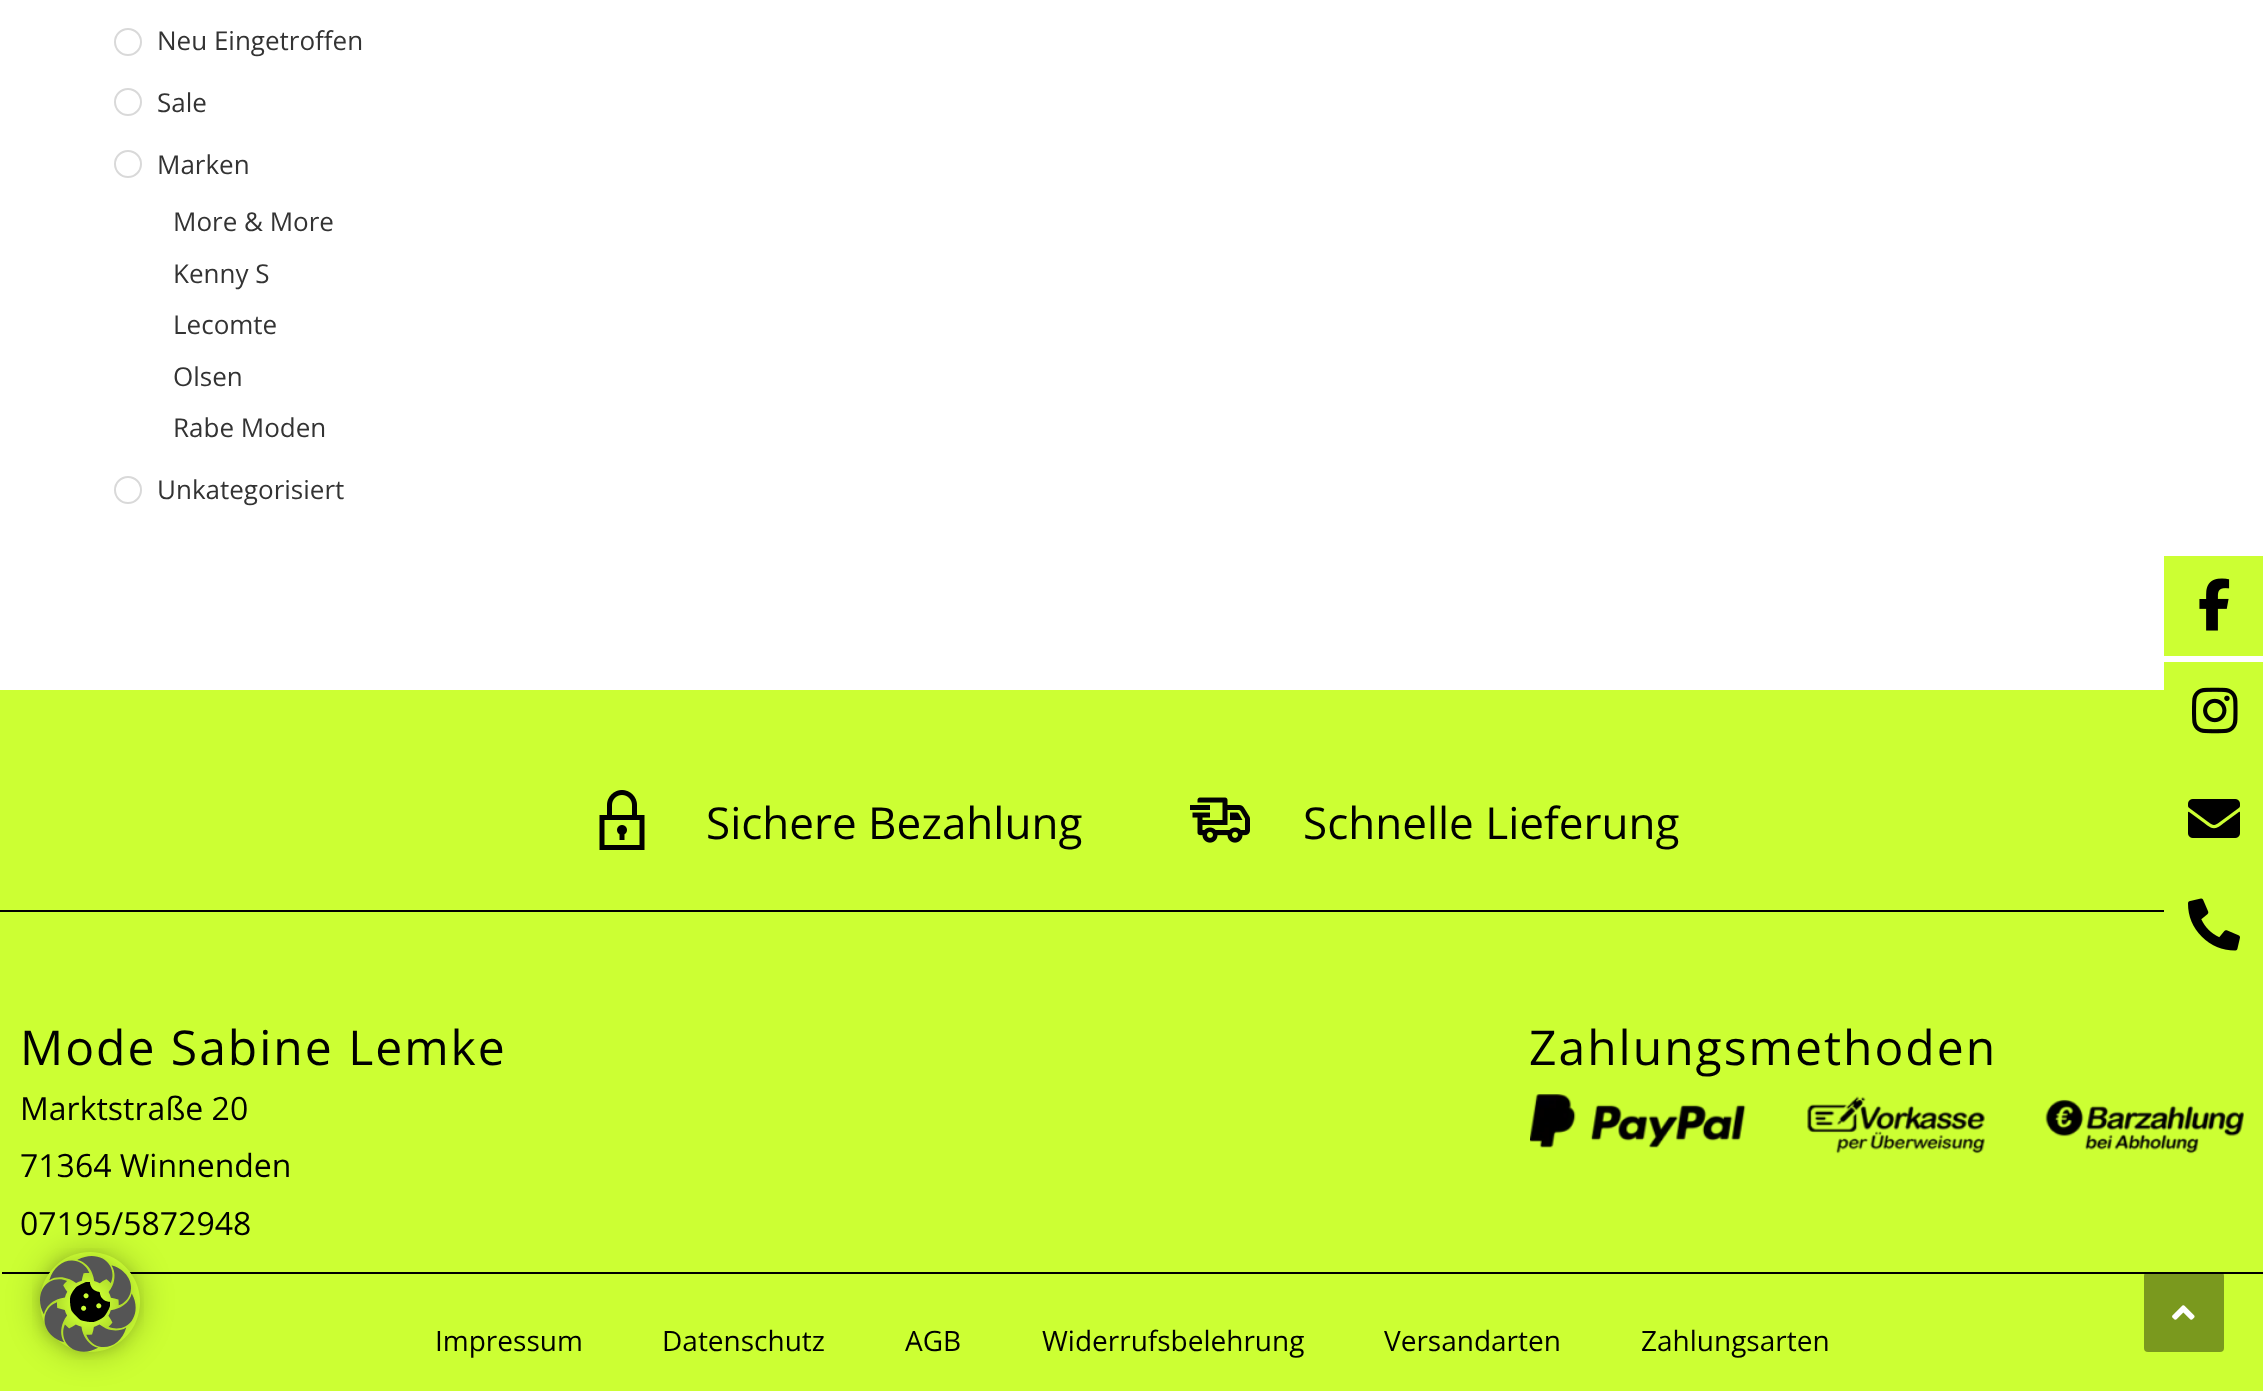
async function draw(canvas) {
  canvas.width = 2263;
  canvas.height = 1391;
  const ctx = canvas.getContext('2d');
  ctx.miterLimit = 4;
  ctx.fontKerning = 'normal';
  function label(s, x, y, font, color) {
    ctx.font = font;
    ctx.fillStyle = color;
    ctx.fillText(s, x, y);
  }
  function rect(x, y, w, h, color) {
    ctx.fillStyle = color;
    ctx.fillRect(x, y, w, h);
  }
  function roundedRect(x, y, w, h, r, color) {
    ctx.fillStyle = color;
    ctx.beginPath();
    ctx.roundRect(x, y, w, h, r);
    ctx.fill();
  }
  async function image(src, x, y, w, h) {
    const img = new Image();
    img.src = src;
    await img.decode();
    ctx.drawImage(img, x, y, w, h);
  }

  rect(0, 0, 2263, 1391, '#fff');
  ctx.beginPath();
  ctx.arc(128, 42, 13, 0, 2 * Math.PI);
  ctx.strokeStyle = '#d9d9d9';
  ctx.lineWidth = 2;
  ctx.stroke();
  label('Neu Eingetroffen', 157, 50, '26px Open Sans', '#333');
  ctx.beginPath();
  ctx.arc(128, 102, 13, 0, 2 * Math.PI);
  ctx.stroke();
  label('Sale', 157, 112, '26px Open Sans', '#333');
  ctx.beginPath();
  ctx.arc(128, 164, 13, 0, 2 * Math.PI);
  ctx.stroke();
  label('Marken', 157, 174, '26px Open Sans', '#333');
  label('More & More', 173, 231, '26px Open Sans', '#333');
  label('Kenny S', 173, 283, '26px Open Sans', '#333');
  label('Lecomte', 173, 334, '26px Open Sans', '#333');
  label('Olsen', 173, 386, '26px Open Sans', '#333');
  label('Rabe Moden', 173, 437, '26px Open Sans', '#333');
  ctx.beginPath();
  ctx.arc(128, 490, 13, 0, 2 * Math.PI);
  ctx.stroke();
  label('Unkategorisiert', 157, 499, '26px Open Sans', '#333');
  rect(0, 690, 2263, 220, '#cf3');
  rect(0, 910, 2164, 2, '#000');
  await image('assets/img1.png', 599, 790, 46, 60);
  label('Sichere Bezahlung', 706, 839, '44px Open Sans', '#000');
  await image('assets/img2.png', 1190, 797, 60, 46);
  label('Schnelle Lieferung', 1303, 839, '44px Open Sans', '#000');
  rect(0, 912, 2263, 479, '#cf3');
  ctx.letterSpacing = '2px';
  label('Mode Sabine Lemke', 20, 1065, '48px Open Sans', '#000');
  ctx.letterSpacing = '0px';
  label('Marktstraße 20', 20, 1120, '32px Open Sans', '#000');
  label('71364 Winnenden', 20, 1177, '32px Open Sans', '#000');
  label('07195/5872948', 20, 1235, '32px Open Sans', '#000');
  ctx.letterSpacing = '2px';
  label('Zahlungsmethoden', 1529, 1065, '48px Open Sans', '#000');
  await image('assets/img3.png', 1530, 1094, 714, 60);
  rect(2, 1272, 2261, 2, '#000');
  ctx.letterSpacing = '0px';
  label('Impressum', 435, 1351, '28px Open Sans', '#000');
  label('Datenschutz', 662, 1351, '28px Open Sans', '#000');
  label('AGB', 905, 1351, '28px Open Sans', '#000');
  label('Widerrufsbelehrung', 1042, 1351, '28px Open Sans', '#000');
  label('Versandarten', 1384, 1351, '28px Open Sans', '#000');
  label('Zahlungsarten', 1641, 1351, '28px Open Sans', '#000');
  rect(2164, 556, 99, 100, '#cf3');
  await image('assets/img4.png', 2199, 578, 31, 53);
  rect(2164, 662, 99, 28, '#cf3');
  await image('assets/img5.png', 2192, 687, 46, 47);
  await image('assets/img6.png', 2188, 799, 52, 39);
  rect(2164, 910, 99, 2, '#cf3');
  await image('assets/img7.png', 2188, 898, 52, 53);
  ctx.fillStyle = '#00000040';
  ctx.filter = 'blur(17px)';
  ctx.beginPath();
  ctx.roundRect(40, 1252, 100, 100, 50);
  ctx.fill();
  ctx.filter = 'none';
  ctx.fillStyle = '#cf3';
  ctx.beginPath();
  ctx.arc(90, 1302, 50, 0, 2 * Math.PI);
  ctx.fill();
  await image('assets/img8.png', 70, 1282, 40, 40);
  await image('assets/img9.png', 32, 1248, 112, 112);
  roundedRect(2144, 1272, 80, 80, 4, '#00000066');
  await image('assets/img10.png', 2172, 1305, 23, 15);
}

draw(document.querySelector('canvas'));
